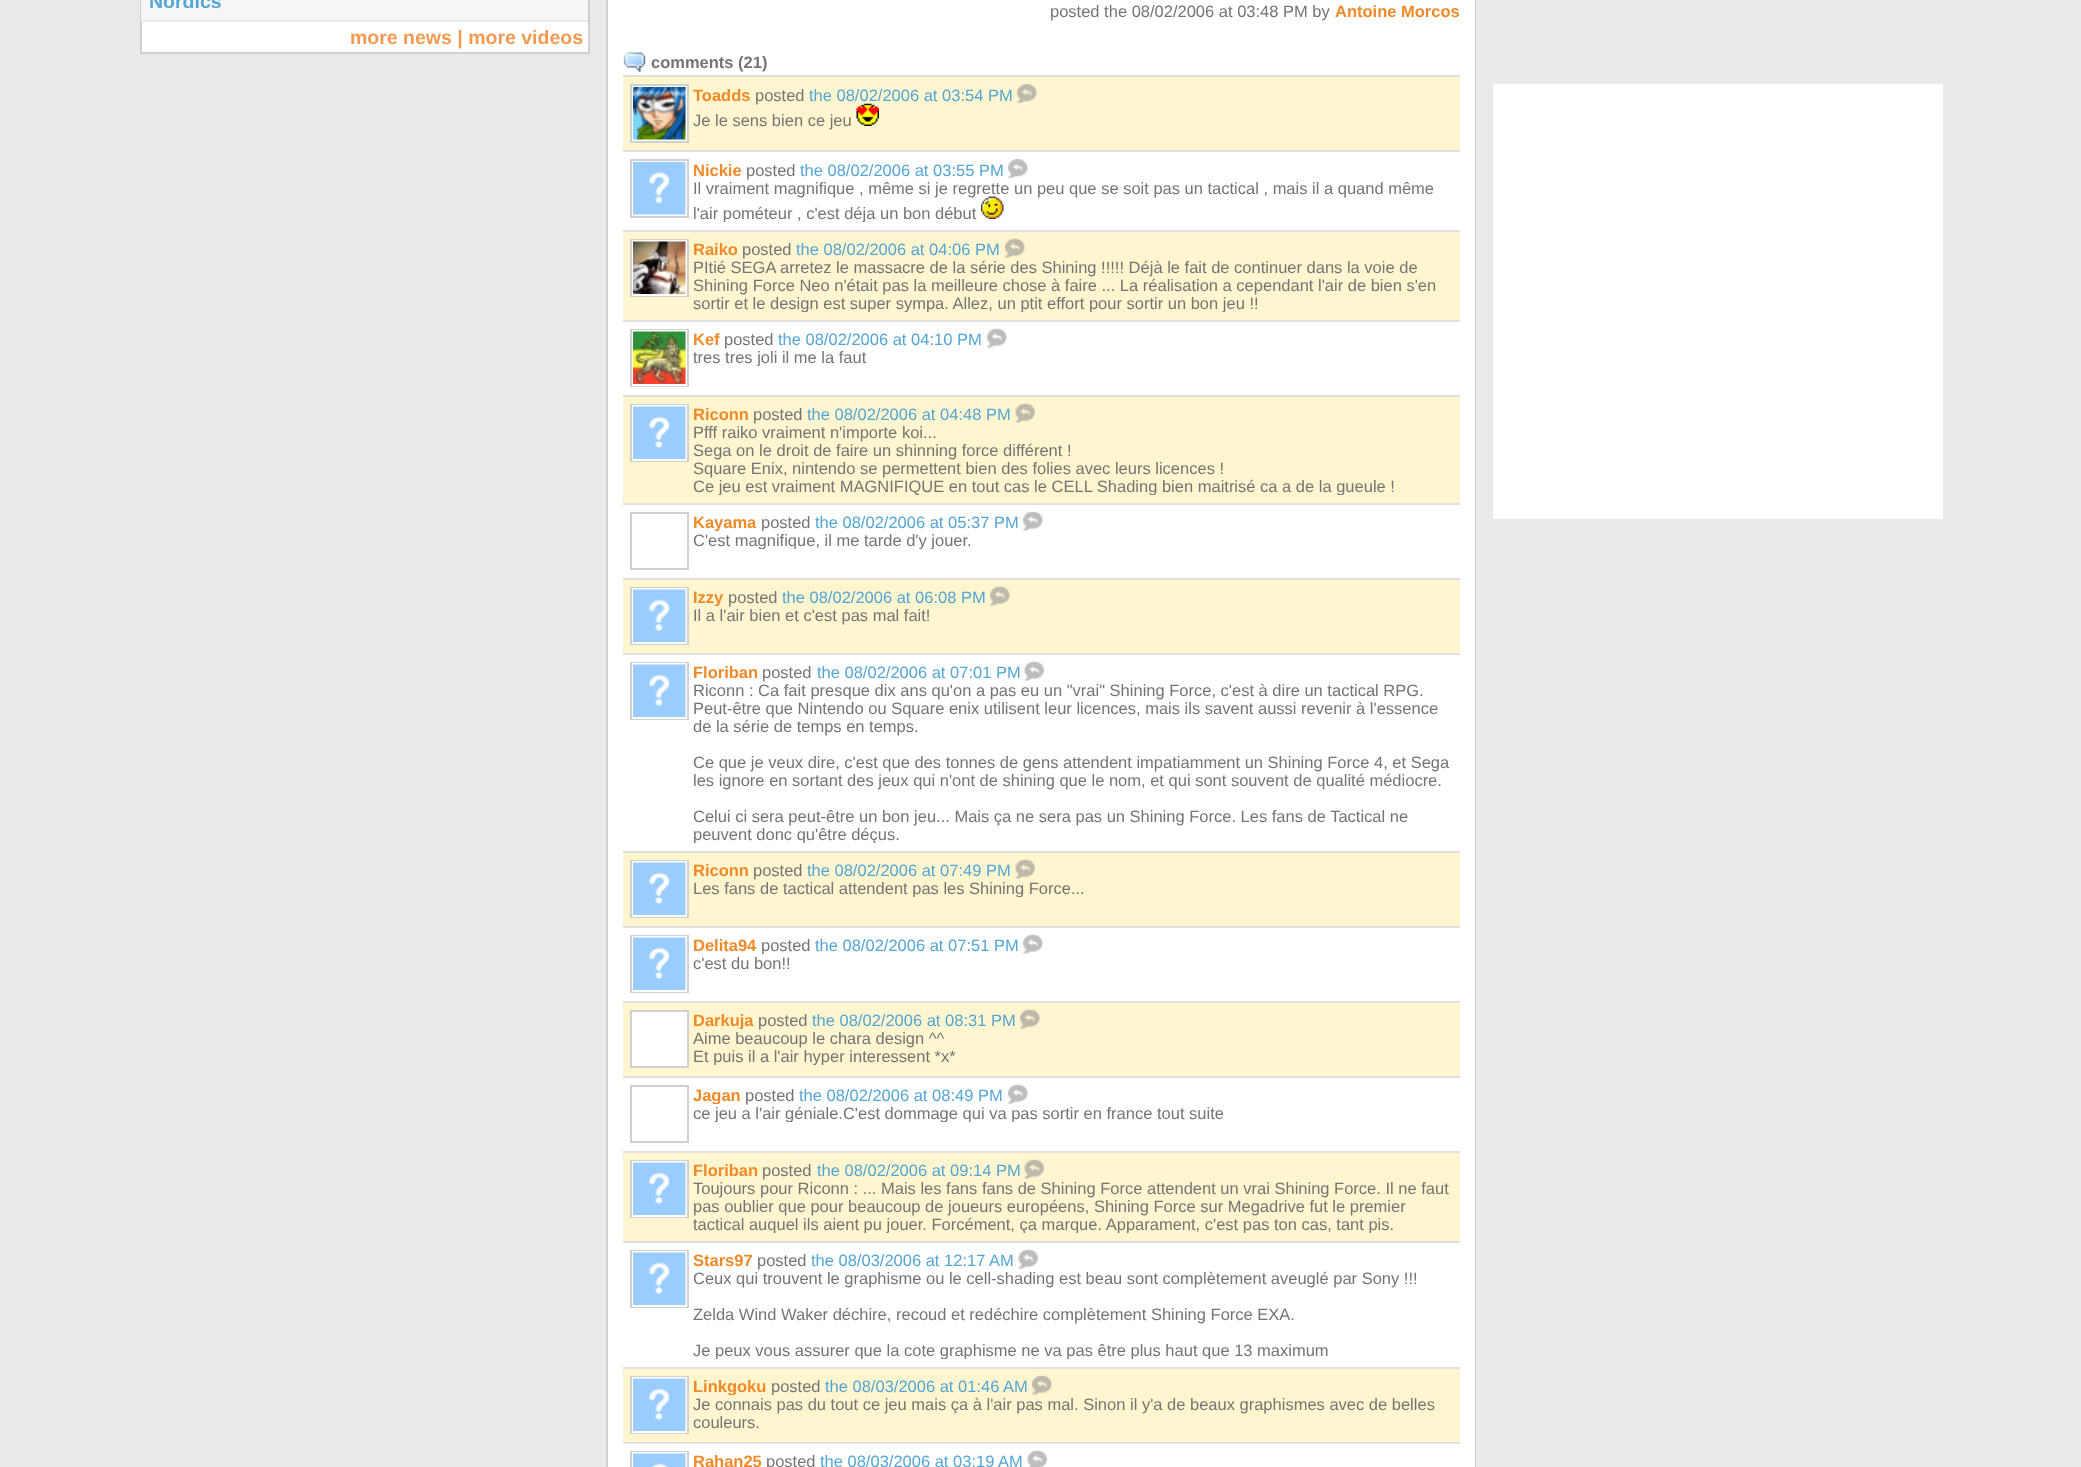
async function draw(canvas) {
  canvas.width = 2081;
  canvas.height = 1467;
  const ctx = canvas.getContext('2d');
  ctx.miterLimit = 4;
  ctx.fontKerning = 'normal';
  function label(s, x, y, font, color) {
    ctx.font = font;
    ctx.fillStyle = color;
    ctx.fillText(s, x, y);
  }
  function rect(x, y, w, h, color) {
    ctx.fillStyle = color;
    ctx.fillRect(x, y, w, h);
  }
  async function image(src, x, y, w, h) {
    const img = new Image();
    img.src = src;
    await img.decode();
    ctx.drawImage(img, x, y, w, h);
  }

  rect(0, 0, 2081, 1467, '#eaeaea');
  rect(142, 22, 446, 30, '#fff');
  ctx.strokeStyle = '#d0d0d0';
  ctx.lineWidth = 2;
  ctx.strokeRect(141, -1, 448, 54);
  rect(141, 0, 447, 20, '#f6f6f6');
  rect(141, 20, 1, 2, '#e9e9e9');
  label('Nordics', 149, 8, 'bold 19.5px Liberation Sans', '#54a6d5');
  label('more news | more videos', 350, 44, 'bold 19.5px Liberation Sans', '#f49952');
  ctx.strokeRect(607, -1, 868, 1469);
  rect(608, 0, 867, 1467, '#fff');
  label('posted the 08/02/2006 at 03:48 PM by', 1050, 17, '16.5px Liberation Sans', '#747474');
  label('Antoine Morcos', 1335, 17, 'bold 16.5px Liberation Sans', '#f08a28');
  await image('assets/img1.png', 623, 52, 23, 21);
  label('comments (21)', 651, 68, 'bold 16.5px Liberation Sans', '#747474');
  rect(623, 77, 837, 73, '#fff6d0');
  rect(623, 75, 837, 2, '#e0e0e0');
  ctx.fillStyle = '#fff';
  ctx.beginPath();
  ctx.rect(631, 85, 57, 57);
  ctx.fill();
  ctx.stroke();
  await image('assets/img2.png', 633, 87, 53, 53);
  label('Toadds', 693, 101, 'bold 16.5px Liberation Sans', '#f08a28');
  label('posted', 755, 101, '16.5px Liberation Sans', '#747474');
  label('the 08/02/2006 at 03:54 PM', 809, 101, '16.5px Liberation Sans', '#54a6d5');
  await image('assets/img3.png', 1017, 84, 20, 20);
  label('Je le sens bien ce jeu', 693, 126, '16.5px Liberation Sans', '#747474');
  await image('assets/img4.png', 856, 103, 23, 23);
  rect(623, 150, 837, 2, '#e0e0e0');
  ctx.strokeRect(631, 160, 57, 57);
  await image('assets/img5.png', 633, 162, 53, 53);
  label('Nickie', 693, 176, 'bold 16.5px Liberation Sans', '#f08a28');
  label('posted', 746, 176, '16.5px Liberation Sans', '#747474');
  label('the 08/02/2006 at 03:55 PM', 800, 176, '16.5px Liberation Sans', '#54a6d5');
  await image('assets/img6.png', 1008, 159, 20, 20);
  label('Il vraiment magnifique , même si je regrette un peu que se soit pas un tactical , mais il a quand même', 693, 194, '16.5px Liberation Sans', '#747474');
  ctx.save();
  ctx.beginPath();
  ctx.rect(693, 179, 759, 43);
  ctx.clip();
  label('l\'air pométeur , c\'est déja un bon début', 693, 219, '16.5px Liberation Sans', '#747474');
  ctx.restore();
  await image('assets/img7.png', 981, 196, 23, 23);
  rect(623, 232, 837, 88, '#fff6d0');
  rect(623, 230, 837, 2, '#e0e0e0');
  ctx.strokeRect(631, 240, 57, 56);
  ctx.strokeStyle = '#fff';
  ctx.strokeRect(633, 241, 53, 54);
  await image('assets/img8.png', 633, 241, 53, 53);
  label('Raiko', 693, 255, 'bold 16.5px Liberation Sans', '#f08a28');
  label('posted', 742, 255, '16.5px Liberation Sans', '#747474');
  label('the 08/02/2006 at 04:06 PM', 796, 255, '16.5px Liberation Sans', '#54a6d5');
  await image('assets/img9.png', 1005, 238, 20, 20);
  label('PItié SEGA arretez le massacre de la série des Shining !!!!! Déjà le fait de continuer dans la voie de', 693, 273, '16.5px Liberation Sans', '#747474');
  label('Shining Force Neo n\'était pas la meilleure chose à faire ... La réalisation a cependant l\'air de bien s\'en', 693, 291, '16.5px Liberation Sans', '#747474');
  ctx.save();
  ctx.beginPath();
  ctx.rect(693, 258, 759, 54);
  ctx.clip();
  label('sortir et le design est super sympa. Allez, un ptit effort pour sortir un bon jeu !!', 693, 309, '16.5px Liberation Sans', '#747474');
  ctx.restore();
  rect(623, 320, 837, 2, '#e0e0e0');
  ctx.strokeStyle = '#d0d0d0';
  ctx.strokeRect(631, 330, 57, 56);
  ctx.strokeStyle = '#fff';
  ctx.strokeRect(633, 331, 53, 54);
  await image('assets/img10.png', 633, 331, 53, 53);
  label('Kef', 693, 345, 'bold 16.5px Liberation Sans', '#f08a28');
  label('posted', 724, 345, '16.5px Liberation Sans', '#747474');
  label('the 08/02/2006 at 04:10 PM', 778, 345, '16.5px Liberation Sans', '#54a6d5');
  await image('assets/img11.png', 987, 328, 20, 20);
  ctx.save();
  ctx.beginPath();
  ctx.rect(693, 348, 759, 18);
  ctx.clip();
  label('tres tres joli il me la faut', 693, 363, '16.5px Liberation Sans', '#747474');
  ctx.restore();
  rect(623, 397, 837, 106, '#fff6d0');
  rect(623, 395, 837, 2, '#e0e0e0');
  ctx.strokeStyle = '#d0d0d0';
  ctx.strokeRect(631, 405, 57, 56);
  ctx.strokeStyle = '#fff';
  ctx.strokeRect(633, 406, 53, 54);
  await image('assets/img12.png', 633, 406, 53, 53);
  label('Riconn', 693, 420, 'bold 16.5px Liberation Sans', '#f08a28');
  label('posted', 753, 420, '16.5px Liberation Sans', '#747474');
  label('the 08/02/2006 at 04:48 PM', 807, 420, '16.5px Liberation Sans', '#54a6d5');
  await image('assets/img13.png', 1015, 403, 20, 20);
  label('Pfff raiko vraiment n\'importe koi...', 693, 438, '16.5px Liberation Sans', '#747474');
  label('Sega on le droit de faire un shinning force différent !', 693, 456, '16.5px Liberation Sans', '#747474');
  label('Square Enix, nintendo se permettent bien des folies avec leurs licences !', 693, 474, '16.5px Liberation Sans', '#747474');
  ctx.save();
  ctx.beginPath();
  ctx.rect(693, 423, 759, 72);
  ctx.clip();
  label('Ce jeu est vraiment MAGNIFIQUE en tout cas le CELL Shading bien maitrisé ca a de la gueule !', 693, 492, '16.5px Liberation Sans', '#747474');
  ctx.restore();
  rect(623, 503, 837, 2, '#e0e0e0');
  ctx.strokeStyle = '#d0d0d0';
  ctx.strokeRect(631, 513, 57, 56);
  ctx.save();
  ctx.beginPath();
  ctx.rect(693, 512, 759, 19);
  ctx.clip();
  label('Kayama', 693, 528, 'bold 16.5px Liberation Sans', '#f08a28');
  label('posted', 761, 528, '16.5px Liberation Sans', '#747474');
  ctx.restore();
  label('the 08/02/2006 at 05:37 PM', 815, 528, '16.5px Liberation Sans', '#54a6d5');
  await image('assets/img11.png', 1023, 511, 20, 20);
  ctx.save();
  ctx.beginPath();
  ctx.rect(693, 531, 759, 18);
  ctx.clip();
  label('C\'est magnifique, il me tarde d\'y jouer.', 693, 546, '16.5px Liberation Sans', '#747474');
  ctx.restore();
  rect(623, 580, 837, 73, '#fff6d0');
  rect(623, 578, 837, 2, '#e0e0e0');
  ctx.strokeRect(631, 588, 57, 56);
  ctx.strokeStyle = '#fff';
  ctx.strokeRect(633, 589, 53, 54);
  await image('assets/img12.png', 633, 589, 53, 53);
  ctx.save();
  ctx.beginPath();
  ctx.rect(693, 587, 759, 19);
  ctx.clip();
  label('Izzy', 693, 603, 'bold 16.5px Liberation Sans', '#f08a28');
  ctx.restore();
  label('posted', 728, 603, '16.5px Liberation Sans', '#747474');
  label('the 08/02/2006 at 06:08 PM', 782, 603, '16.5px Liberation Sans', '#54a6d5');
  await image('assets/img9.png', 990, 586, 20, 20);
  label('Il a l\'air bien et c\'est pas mal fait!', 693, 621, '16.5px Liberation Sans', '#747474');
  rect(623, 653, 837, 2, '#e0e0e0');
  ctx.strokeStyle = '#d0d0d0';
  ctx.strokeRect(631, 663, 57, 56);
  ctx.strokeStyle = '#fff';
  ctx.strokeRect(633, 664, 53, 54);
  await image('assets/img12.png', 633, 664, 53, 53);
  label('Floriban', 693, 678, 'bold 16.5px Liberation Sans', '#f08a28');
  label('posted', 762, 678, '16.5px Liberation Sans', '#747474');
  label('the 08/02/2006 at 07:01 PM', 817, 678, '16.5px Liberation Sans', '#54a6d5');
  await image('assets/img14.png', 1024, 661, 20, 20);
  label('Riconn : Ca fait presque dix ans qu\'on a pas eu un "vrai" Shining Force, c\'est à dire un tactical RPG.', 693, 696, '16.5px Liberation Sans', '#747474');
  label('Peut-être que Nintendo ou Square enix utilisent leur licences, mais ils savent aussi revenir à l\'essence', 693, 714, '16.5px Liberation Sans', '#747474');
  label('de la série de temps en temps.', 693, 732, '16.5px Liberation Sans', '#747474');
  label('Ce que je veux dire, c\'est que des tonnes de gens attendent impatiamment un Shining Force 4, et Sega', 693, 768, '16.5px Liberation Sans', '#747474');
  label('les ignore en sortant des jeux qui n\'ont de shining que le nom, et qui sont souvent de qualité médiocre.', 693, 786, '16.5px Liberation Sans', '#747474');
  label('Celui ci sera peut-être un bon jeu... Mais ça ne sera pas un Shining Force. Les fans de Tactical ne', 693, 822, '16.5px Liberation Sans', '#747474');
  ctx.save();
  ctx.beginPath();
  ctx.rect(693, 681, 759, 162);
  ctx.clip();
  label('peuvent donc qu\'être déçus.', 693, 840, '16.5px Liberation Sans', '#747474');
  ctx.restore();
  rect(623, 853, 837, 73, '#fff6d0');
  rect(623, 851, 837, 2, '#e0e0e0');
  ctx.strokeStyle = '#d0d0d0';
  ctx.strokeRect(631, 861, 57, 56);
  ctx.strokeStyle = '#fff';
  ctx.strokeRect(633, 862, 53, 54);
  await image('assets/img12.png', 633, 862, 53, 53);
  label('Riconn', 693, 876, 'bold 16.5px Liberation Sans', '#f08a28');
  label('posted', 753, 876, '16.5px Liberation Sans', '#747474');
  label('the 08/02/2006 at 07:49 PM', 807, 876, '16.5px Liberation Sans', '#54a6d5');
  await image('assets/img13.png', 1015, 859, 20, 20);
  ctx.save();
  ctx.beginPath();
  ctx.rect(693, 879, 759, 18);
  ctx.clip();
  label('Les fans de tactical attendent pas les Shining Force...', 693, 894, '16.5px Liberation Sans', '#747474');
  ctx.restore();
  rect(623, 926, 837, 2, '#e0e0e0');
  ctx.strokeStyle = '#d0d0d0';
  ctx.strokeRect(631, 936, 57, 56);
  ctx.strokeStyle = '#fff';
  ctx.strokeRect(633, 937, 53, 54);
  await image('assets/img12.png', 633, 937, 53, 53);
  label('Delita94', 693, 951, 'bold 16.5px Liberation Sans', '#f08a28');
  ctx.save();
  ctx.beginPath();
  ctx.rect(693, 935, 759, 19);
  ctx.clip();
  label('posted', 761, 951, '16.5px Liberation Sans', '#747474');
  ctx.restore();
  label('the 08/02/2006 at 07:51 PM', 815, 951, '16.5px Liberation Sans', '#54a6d5');
  await image('assets/img11.png', 1023, 934, 20, 20);
  label('c\'est du bon!!', 693, 969, '16.5px Liberation Sans', '#747474');
  rect(623, 1003, 837, 73, '#fff6d0');
  rect(623, 1001, 837, 2, '#e0e0e0');
  ctx.fillStyle = '#fff';
  ctx.beginPath();
  ctx.rect(631, 1011, 57, 56);
  ctx.fill();
  ctx.strokeStyle = '#d0d0d0';
  ctx.stroke();
  ctx.save();
  ctx.beginPath();
  ctx.rect(693, 1010, 759, 19);
  ctx.clip();
  label('Darkuja', 693, 1026, 'bold 16.5px Liberation Sans', '#f08a28');
  ctx.restore();
  label('posted', 758, 1026, '16.5px Liberation Sans', '#747474');
  label('the 08/02/2006 at 08:31 PM', 812, 1026, '16.5px Liberation Sans', '#54a6d5');
  await image('assets/img9.png', 1020, 1009, 20, 20);
  label('Aime beaucoup le chara design ^^', 693, 1044, '16.5px Liberation Sans', '#747474');
  ctx.save();
  ctx.beginPath();
  ctx.rect(693, 1029, 759, 36);
  ctx.clip();
  label('Et puis il a l\'air hyper interessent *x*', 693, 1062, '16.5px Liberation Sans', '#747474');
  ctx.restore();
  rect(623, 1076, 837, 2, '#e0e0e0');
  ctx.strokeRect(631, 1086, 57, 56);
  ctx.save();
  ctx.beginPath();
  ctx.rect(693, 1085, 759, 19);
  ctx.clip();
  label('Jagan', 693, 1101, 'bold 16.5px Liberation Sans', '#f08a28');
  ctx.restore();
  label('posted', 745, 1101, '16.5px Liberation Sans', '#747474');
  label('the 08/02/2006 at 08:49 PM', 799, 1101, '16.5px Liberation Sans', '#54a6d5');
  await image('assets/img11.png', 1008, 1084, 20, 20);
  ctx.save();
  ctx.beginPath();
  ctx.rect(693, 1104, 759, 18);
  ctx.clip();
  label('ce jeu a l\'air géniale.C\'est dommage qui va pas sortir en france tout suite', 693, 1119, '16.5px Liberation Sans', '#747474');
  ctx.restore();
  rect(623, 1153, 837, 88, '#fff6d0');
  rect(623, 1151, 837, 2, '#e0e0e0');
  ctx.strokeRect(631, 1161, 57, 56);
  ctx.strokeStyle = '#fff';
  ctx.strokeRect(633, 1162, 53, 54);
  await image('assets/img12.png', 633, 1162, 53, 53);
  label('Floriban', 693, 1176, 'bold 16.5px Liberation Sans', '#f08a28');
  label('posted', 762, 1176, '16.5px Liberation Sans', '#747474');
  label('the 08/02/2006 at 09:14 PM', 817, 1176, '16.5px Liberation Sans', '#54a6d5');
  await image('assets/img13.png', 1024, 1159, 20, 20);
  label('Toujours pour Riconn : ... Mais les fans fans de Shining Force attendent un vrai Shining Force. Il ne faut', 693, 1194, '16.5px Liberation Sans', '#747474');
  label('pas oublier que pour beaucoup de joueurs européens, Shining Force sur Megadrive fut le premier', 693, 1212, '16.5px Liberation Sans', '#747474');
  ctx.save();
  ctx.beginPath();
  ctx.rect(693, 1179, 759, 54);
  ctx.clip();
  label('tactical auquel ils aient pu jouer. Forcément, ça marque. Apparament, c\'est pas ton cas, tant pis.', 693, 1230, '16.5px Liberation Sans', '#747474');
  ctx.restore();
  rect(623, 1241, 837, 2, '#e0e0e0');
  ctx.strokeStyle = '#d0d0d0';
  ctx.strokeRect(631, 1251, 57, 56);
  ctx.strokeStyle = '#fff';
  ctx.strokeRect(633, 1252, 53, 54);
  await image('assets/img12.png', 633, 1252, 53, 53);
  label('Stars97', 693, 1266, 'bold 16.5px Liberation Sans', '#f08a28');
  label('posted', 757, 1266, '16.5px Liberation Sans', '#747474');
  label('the 08/03/2006 at 12:17 AM', 811, 1266, '16.5px Liberation Sans', '#54a6d5');
  await image('assets/img14.png', 1018, 1249, 20, 20);
  label('Ceux qui trouvent le graphisme ou le cell-shading est beau sont complètement aveuglé par Sony !!!', 693, 1284, '16.5px Liberation Sans', '#747474');
  label('Zelda Wind Waker déchire, recoud et redéchire complètement Shining Force EXA.', 693, 1320, '16.5px Liberation Sans', '#747474');
  ctx.save();
  ctx.beginPath();
  ctx.rect(693, 1269, 759, 90);
  ctx.clip();
  label('Je peux vous assurer que la cote graphisme ne va pas être plus haut que 13 maximum', 693, 1356, '16.5px Liberation Sans', '#747474');
  ctx.restore();
  rect(623, 1369, 837, 73, '#fff6d0');
  rect(623, 1367, 837, 2, '#e0e0e0');
  ctx.strokeStyle = '#d0d0d0';
  ctx.strokeRect(631, 1377, 57, 56);
  ctx.strokeStyle = '#fff';
  ctx.strokeRect(633, 1378, 53, 54);
  await image('assets/img12.png', 633, 1378, 53, 53);
  ctx.save();
  ctx.beginPath();
  ctx.rect(693, 1376, 759, 19);
  ctx.clip();
  label('Linkgoku', 693, 1392, 'bold 16.5px Liberation Sans', '#f08a28');
  label('posted', 771, 1392, '16.5px Liberation Sans', '#747474');
  ctx.restore();
  label('the 08/03/2006 at 01:46 AM', 825, 1392, '16.5px Liberation Sans', '#54a6d5');
  await image('assets/img9.png', 1032, 1375, 20, 20);
  label('Je connais pas du tout ce jeu mais ça à l\'air pas mal. Sinon il y\'a de beaux graphismes avec de belles', 693, 1410, '16.5px Liberation Sans', '#747474');
  label('couleurs.', 693, 1428, '16.5px Liberation Sans', '#747474');
  rect(623, 1442, 837, 2, '#e0e0e0');
  ctx.strokeStyle = '#d0d0d0';
  ctx.strokeRect(631, 1452, 57, 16);
  ctx.strokeStyle = '#fff';
  ctx.strokeRect(633, 1453, 53, 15);
  await image('assets/img15.png', 633, 1453, 53, 14);
  label('Rahan25', 693, 1467, 'bold 16.5px Liberation Sans', '#f08a28');
  label('posted', 766, 1467, '16.5px Liberation Sans', '#747474');
  label('the 08/03/2006 at 03:19 AM', 820, 1467, '16.5px Liberation Sans', '#54a6d5');
  await image('assets/img16.png', 1027, 1450, 20, 17);
  rect(1493, 84, 450, 435, '#fff');
}

draw(document.querySelector('canvas'));
